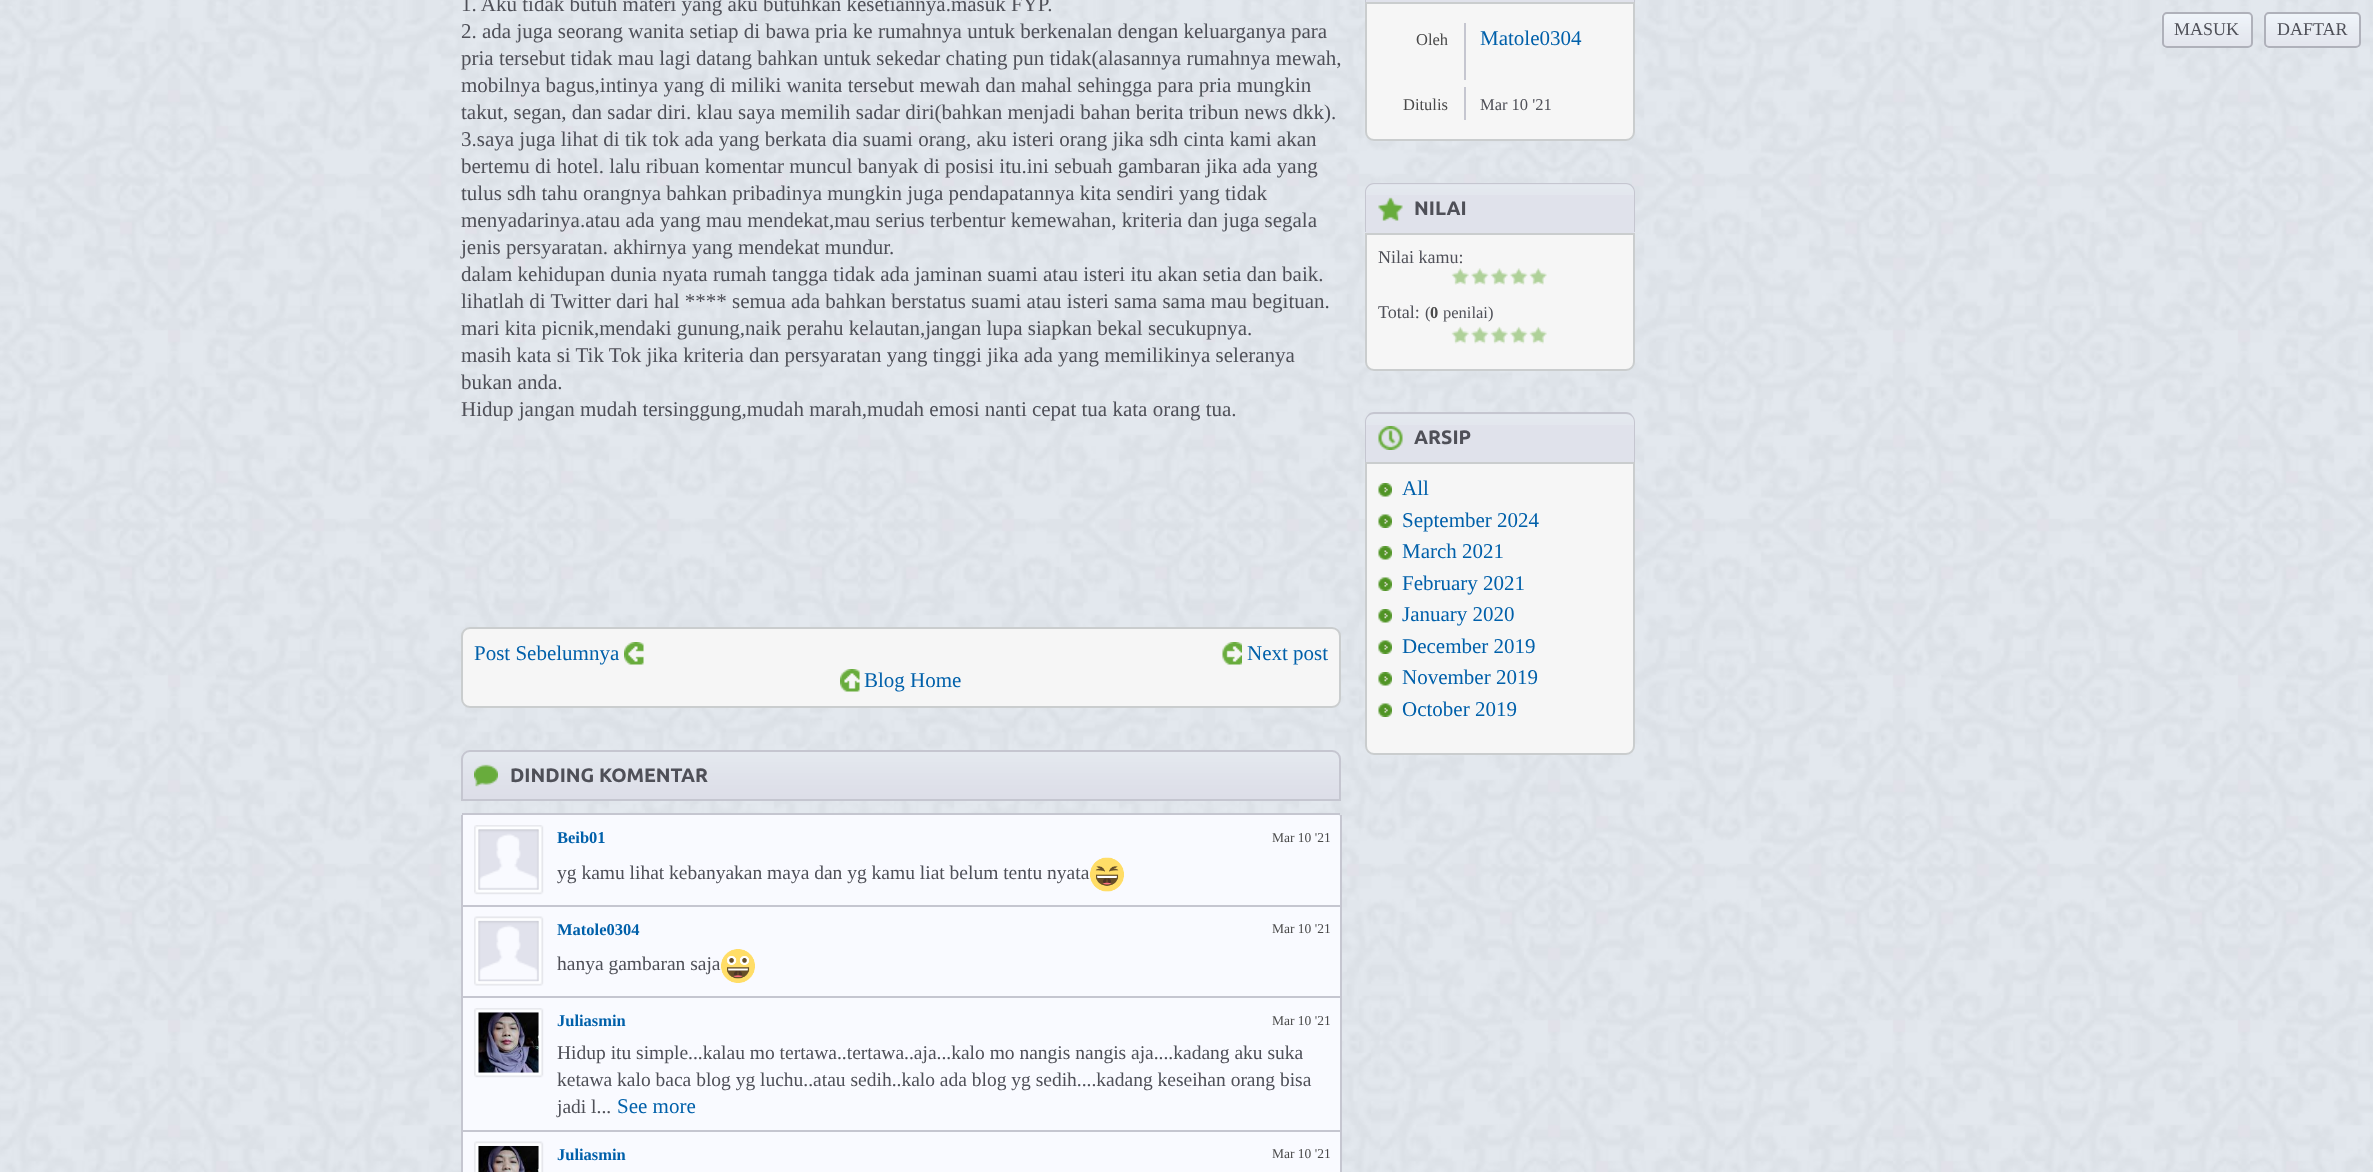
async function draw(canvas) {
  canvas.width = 2373;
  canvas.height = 1172;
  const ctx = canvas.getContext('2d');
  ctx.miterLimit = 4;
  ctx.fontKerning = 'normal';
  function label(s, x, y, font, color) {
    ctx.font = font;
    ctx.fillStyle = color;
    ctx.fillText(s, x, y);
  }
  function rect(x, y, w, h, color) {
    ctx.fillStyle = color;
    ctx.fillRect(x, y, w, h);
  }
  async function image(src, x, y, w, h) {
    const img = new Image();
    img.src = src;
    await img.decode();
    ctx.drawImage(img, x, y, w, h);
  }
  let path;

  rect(0, 0, 2373, 1172, '#fff');
  await image('assets/img1.png', 0, 0, 2373, 1172);
  label('1. Aku tidak butuh materi yang aku butuhkan kesetiannya.masuk FYP.', 461, 11, '21px Liberation Serif', '#4f5058');
  label('2. ada juga seorang wanita setiap di bawa pria ke rumahnya untuk berkenalan dengan keluarganya para', 461, 38, '21px Liberation Serif', '#4f5058');
  label('pria tersebut tidak mau lagi datang bahkan untuk sekedar chating pun tidak(alasannya rumahnya mewah,', 461, 65, '21px Liberation Serif', '#4f5058');
  label('mobilnya bagus,intinya yang di miliki wanita tersebut mewah dan mahal sehingga para pria mungkin', 461, 92, '21px Liberation Serif', '#4f5058');
  label('takut, segan, dan sadar diri. klau saya memilih sadar diri(bahkan menjadi bahan berita tribun news dkk).', 461, 119, '21px Liberation Serif', '#4f5058');
  label('3.saya juga lihat di tik tok ada yang berkata dia suami orang, aku isteri orang jika sdh cinta kami akan', 461, 146, '21px Liberation Serif', '#4f5058');
  label('bertemu di hotel. lalu ribuan komentar muncul banyak di posisi itu.ini sebuah gambaran jika ada yang', 461, 173, '21px Liberation Serif', '#4f5058');
  label('tulus sdh tahu orangnya bahkan pribadinya mungkin juga pendapatannya kita sendiri yang tidak', 461, 200, '21px Liberation Serif', '#4f5058');
  label('menyadarinya.atau ada yang mau mendekat,mau serius terbentur kemewahan, kriteria dan juga segala', 461, 227, '21px Liberation Serif', '#4f5058');
  label('jenis persyaratan. akhirnya yang mendekat mundur.', 461, 254, '21px Liberation Serif', '#4f5058');
  label('dalam kehidupan dunia nyata rumah tangga tidak ada jaminan suami atau isteri itu akan setia dan baik.', 461, 281, '21px Liberation Serif', '#4f5058');
  label('lihatlah di Twitter dari hal **** semua ada bahkan berstatus suami atau isteri sama sama mau begituan.', 461, 308, '21px Liberation Serif', '#4f5058');
  label('mari kita picnik,mendaki gunung,naik perahu kelautan,jangan lupa siapkan bekal secukupnya.', 461, 335, '21px Liberation Serif', '#4f5058');
  label('masih kata si Tik Tok jika kriteria dan persyaratan yang tinggi jika ada yang memilikinya seleranya', 461, 362, '21px Liberation Serif', '#4f5058');
  label('bukan anda.', 461, 389, '21px Liberation Serif', '#4f5058');
  label('Hidup jangan mudah tersinggung,mudah marah,mudah emosi nanti cepat tua kata orang tua.', 461, 416, '21px Liberation Serif', '#4f5058');
  ctx.fillStyle = '#f6f6f6';
  ctx.beginPath();
  ctx.roundRect(462, 628, 878, 79, 8);
  ctx.fill();
  ctx.strokeStyle = '#cacdce';
  ctx.lineWidth = 2;
  ctx.stroke();
  label('Post Sebelumnya', 474, 660, '21px Liberation Serif', '#0060aa');
  await image('assets/img2.png', 624, 642, 20, 23);
  await image('assets/img3.png', 1222, 642, 20, 23);
  label('Next post', 1247, 660, '21px Liberation Serif', '#0060aa');
  await image('assets/img4.png', 840, 669, 20, 23);
  label('Blog Home', 864, 687, '21px Liberation Serif', '#0060aa');
  await image('assets/img5.png', 461, 750, 880, 49);
  ctx.beginPath();
  ctx.roundRect(462, 751, 878, 49, [8, 8, 0, 0]);
  ctx.strokeStyle = '#c5c6d0';
  ctx.stroke();
  await image('assets/img6.png', 474, 764, 24, 23);
  label('DINDING KOMENTAR', 510, 782, 'bold 19.5px Ubuntu', '#4f5058');
  ctx.fillStyle = '#f9faff';
  ctx.beginPath();
  ctx.roundRect(462, 815, 878, 90, [1.5, 1.5, 0, 0]);
  ctx.fill();
  rect(462, 813, 878, 2, '#c5c6d0');
  rect(1340, 815, 2, 90, '#c5c6d0');
  rect(461, 815, 2, 90, '#c5c6d0');
  await image('assets/img7.png', 474, 825, 70, 70);
  await image('assets/img8.png', 478, 829, 61, 61);
  label('Beib01', 557, 843, 'bold 16.5px Liberation Serif', '#0060aa');
  label('Mar 10 \'21', 1272, 842, '13.5px Liberation Serif', '#494949');
  label('yg kamu lihat kebanyakan maya dan yg kamu liat belum tentu nyata', 557, 879, '19.5px Liberation Serif', '#4f5058');
  await image('assets/img9.png', 1090, 857, 34, 35);
  rect(463, 907, 877, 89, '#f9faff');
  rect(461, 905, 880, 2, '#c5c6d0');
  rect(1340, 905, 2, 91, '#c5c6d0');
  rect(461, 905, 2, 91, '#c5c6d0');
  await image('assets/img10.png', 474, 916, 70, 70);
  await image('assets/img11.png', 478, 921, 61, 60);
  label('Matole0304', 557, 935, 'bold 16.5px Liberation Serif', '#0060aa');
  label('Mar 10 \'21', 1272, 933, '13.5px Liberation Serif', '#494949');
  label('hanya gambaran saja', 557, 970, '19.5px Liberation Serif', '#4f5058');
  await image('assets/img12.png', 721, 949, 34, 34);
  rect(463, 998, 877, 132, '#f9faff');
  rect(461, 996, 880, 2, '#c5c6d0');
  rect(1340, 996, 2, 134, '#c5c6d0');
  rect(461, 996, 2, 134, '#c5c6d0');
  await image('assets/img7.png', 474, 1008, 70, 70);
  await image('assets/img13.png', 478, 1012, 61, 61);
  label('Juliasmin', 557, 1026, 'bold 16.5px Liberation Serif', '#0060aa');
  label('Mar 10 \'21', 1272, 1025, '13.5px Liberation Serif', '#494949');
  label('Hidup itu simple...kalau mo tertawa..tertawa..aja...kalo mo nangis nangis aja....kadang aku suka', 557, 1059, '19.5px Liberation Serif', '#4f5058');
  label('ketawa kalo baca blog yg luchu..atau sedih..kalo ada blog yg sedih....kadang keseihan orang bisa', 557, 1086, '19.5px Liberation Serif', '#4f5058');
  label('jadi l...', 557, 1113, '19.5px Liberation Serif', '#4f5058');
  label('See more', 617, 1113, '21px Liberation Serif', '#0060aa');
  rect(463, 1132, 877, 40, '#f9faff');
  rect(461, 1130, 880, 2, '#c5c6d0');
  rect(1340, 1130, 2, 42, '#c5c6d0');
  rect(461, 1130, 2, 42, '#c5c6d0');
  await image('assets/img14.png', 474, 1141, 70, 31);
  await image('assets/img15.png', 478, 1146, 61, 26);
  label('Juliasmin', 557, 1160, 'bold 16.5px Liberation Serif', '#0060aa');
  label('Mar 10 \'21', 1272, 1158, '13.5px Liberation Serif', '#494949');
  rect(1365, 0, 270, 2, '#e0e2eb');
  ctx.fillStyle = '#c5c6d0';
  path = new Path2D('M1374-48H1626C1631-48 1635-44 1635-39V2H1365V-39C1365-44 1369-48 1374-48ZM1374-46H1626C1630-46 1634-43 1634-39V2H1366V-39C1366-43 1370-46 1374-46Z');
  ctx.fill(path, 'evenodd');
  ctx.fillStyle = '#f6f6f6';
  ctx.beginPath();
  ctx.roundRect(1366, 3, 268, 137, [0, 0, 8, 8]);
  ctx.fill();
  ctx.strokeStyle = '#cacdce';
  ctx.stroke();
  label('Oleh', 1416, 45, '16.5px Liberation Serif', '#494949');
  rect(1464, 23, 2, 57, '#c5c6d0');
  label('Matole0304', 1480, 45, '21px Liberation Serif', '#0060aa');
  label('Ditulis', 1403, 110, '16.5px Liberation Serif', '#494949');
  rect(1464, 87, 2, 33, '#c5c6d0');
  label('Mar 10 \'21', 1480, 110, '16.5px Liberation Serif', '#4f5058');
  ctx.fillStyle = '#e0e2eb';
  ctx.beginPath();
  ctx.roundRect(1365, 183, 270, 50, [9, 9, 0, 0]);
  ctx.fill();
  await image('assets/img16.png', 1365, 183, 270, 12);
  ctx.fillStyle = '#c5c6d0';
  path = new Path2D('M1374 183H1626C1631 183 1635 187 1635 192V232H1365V192C1365 187 1369 183 1374 183ZM1374 184H1626C1630 184 1634 188 1634 192V232H1366V192C1366 188 1370 184 1374 184Z');
  ctx.fill(path, 'evenodd');
  await image('assets/img17.png', 1378, 197, 25, 24);
  label('NILAI', 1414, 215, 'bold 19.5px Ubuntu', '#4f5058');
  ctx.fillStyle = '#f6f6f6';
  ctx.beginPath();
  ctx.roundRect(1366, 234, 268, 136, [0, 0, 8, 8]);
  ctx.fill();
  ctx.stroke();
  label('Nilai kamu:', 1378, 263, '18px Liberation Serif', '#4f5058');
  await image('assets/img18.png', 1451, 268, 18, 17);
  await image('assets/img19.png', 1471, 268, 18, 17);
  await image('assets/img18.png', 1490, 268, 18, 17);
  await image('assets/img19.png', 1510, 268, 18, 17);
  await image('assets/img20.png', 1529, 268, 18, 17);
  label('Total:', 1378, 318, '18px Liberation Serif', '#4f5058');
  label('(', 1425, 318, '16.5px Liberation Serif', '#4f5058');
  label('0', 1430, 318, 'bold 16.5px Liberation Serif', '#494949');
  label('penilai)', 1443, 318, '16.5px Liberation Serif', '#4f5058');
  await image('assets/img21.png', 1451, 326, 96, 18);
  ctx.fillStyle = '#e0e2eb';
  ctx.beginPath();
  ctx.roundRect(1365, 413, 270, 49, [9, 9, 0, 0]);
  ctx.fill();
  await image('assets/img22.png', 1365, 413, 270, 12);
  ctx.fillStyle = '#c5c6d0';
  path = new Path2D('M1374 412H1626C1631 412 1635 417 1635 422V462H1365V422C1365 417 1369 412 1374 412ZM1374 414H1626C1630 414 1634 417 1634 422V462H1366V422C1366 417 1370 414 1374 414Z');
  ctx.fill(path, 'evenodd');
  await image('assets/img23.png', 1378, 426, 25, 24);
  label('ARSIP', 1414, 444, 'bold 19.5px Ubuntu', '#4f5058');
  ctx.fillStyle = '#f6f6f6';
  ctx.beginPath();
  ctx.roundRect(1366, 463, 268, 291, [0, 0, 8, 8]);
  ctx.fill();
  ctx.stroke();
  await image('assets/img24.png', 1378, 483, 14, 14);
  label('All', 1402, 495, '21px Liberation Serif', '#0060aa');
  await image('assets/img25.png', 1378, 514, 14, 14);
  label('September 2024', 1402, 527, '21px Liberation Serif', '#0060aa');
  await image('assets/img24.png', 1378, 546, 14, 14);
  label('March 2021', 1402, 558, '21px Liberation Serif', '#0060aa');
  await image('assets/img25.png', 1378, 577, 14, 14);
  label('February 2021', 1402, 590, '21px Liberation Serif', '#0060aa');
  await image('assets/img24.png', 1378, 609, 14, 14);
  label('January 2020', 1402, 621, '21px Liberation Serif', '#0060aa');
  await image('assets/img25.png', 1378, 640, 14, 14);
  label('December 2019', 1402, 653, '21px Liberation Serif', '#0060aa');
  await image('assets/img24.png', 1378, 672, 14, 14);
  label('November 2019', 1402, 684, '21px Liberation Serif', '#0060aa');
  await image('assets/img25.png', 1378, 703, 14, 14);
  label('October 2019', 1402, 716, '21px Liberation Serif', '#0060aa');
  await image('assets/img26.png', 2161, 12, 92, 36);
  ctx.beginPath();
  ctx.roundRect(2163, 13, 89, 34, 4);
  ctx.strokeStyle = '#afb1ba';
  ctx.stroke();
  label('MASUK', 2174, 35, '18px Liberation Serif', '#4f5058');
  await image('assets/img27.png', 2264, 12, 97, 36);
  ctx.beginPath();
  ctx.roundRect(2265, 13, 95, 34, 4);
  ctx.stroke();
  label('DAFTAR', 2277, 35, '18px Liberation Serif', '#4f5058');
}

draw(document.querySelector('canvas'));
